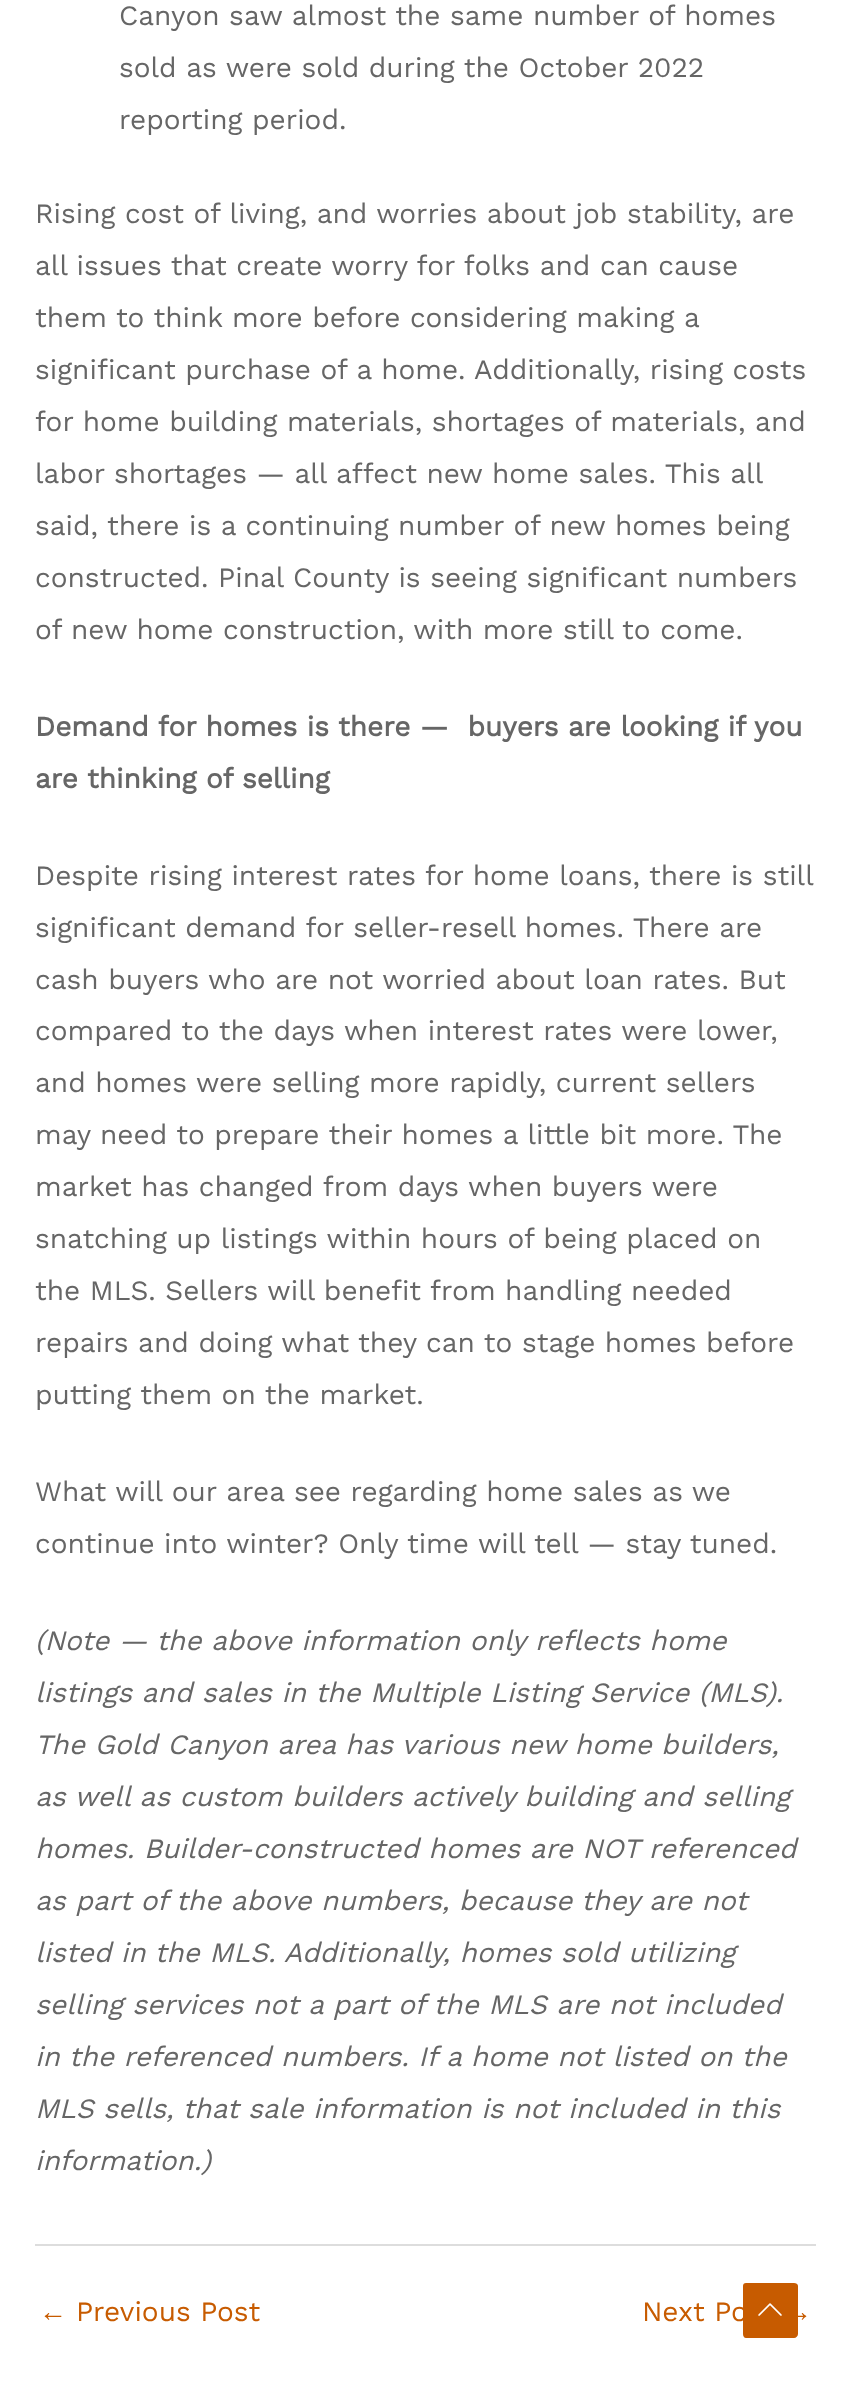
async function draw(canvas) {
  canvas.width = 850;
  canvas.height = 2389;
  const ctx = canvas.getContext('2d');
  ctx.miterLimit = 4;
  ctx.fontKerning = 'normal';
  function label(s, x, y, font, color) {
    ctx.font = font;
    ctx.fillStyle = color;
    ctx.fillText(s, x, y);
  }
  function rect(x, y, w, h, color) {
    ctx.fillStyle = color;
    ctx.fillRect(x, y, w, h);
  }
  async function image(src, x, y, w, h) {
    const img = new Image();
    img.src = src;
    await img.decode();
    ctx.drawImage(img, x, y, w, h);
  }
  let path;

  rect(0, 0, 850, 2389, '#fff');
  label('Canyon saw almost the same number of homes', 119, 25, '28px Work Sans', '#666');
  label('sold as were sold during the October 2022', 119, 77, '28px Work Sans', '#666');
  label('reporting period.', 119, 129, '28px Work Sans', '#666');
  label('Rising cost of living, and worries about job stability, are', 35, 223, '28px Work Sans', '#666');
  label('all issues that create worry for folks and can cause', 35, 275, '28px Work Sans', '#666');
  label('them to think more before considering making a', 35, 327, '28px Work Sans', '#666');
  label('significant purchase of a home. Additionally, rising costs', 35, 379, '28px Work Sans', '#666');
  label('for home building materials, shortages of materials, and', 35, 431, '28px Work Sans', '#666');
  label('labor shortages — all affect new home sales. This all', 35, 483, '28px Work Sans', '#666');
  label('said, there is a continuing number of new homes being', 35, 535, '28px Work Sans', '#666');
  label('constructed. Pinal County is seeing significant numbers', 35, 587, '28px Work Sans', '#666');
  label('of new home construction, with more still to come.', 35, 639, '28px Work Sans', '#666');
  label('Demand for homes is there —  buyers are looking if you', 35, 736, 'bold 28px Work Sans', '#666');
  label('are thinking of selling', 35, 788, 'bold 28px Work Sans', '#666');
  label('Despite rising interest rates for home loans, there is still', 35, 885, '28px Work Sans', '#666');
  label('significant demand for seller-resell homes. There are', 35, 937, '28px Work Sans', '#666');
  label('cash buyers who are not worried about loan rates. But', 35, 989, '28px Work Sans', '#666');
  label('compared to the days when interest rates were lower,', 35, 1040, '28px Work Sans', '#666');
  label('and homes were selling more rapidly, current sellers', 35, 1092, '28px Work Sans', '#666');
  label('may need to prepare their homes a little bit more. The', 35, 1144, '28px Work Sans', '#666');
  label('market has changed from days when buyers were', 35, 1196, '28px Work Sans', '#666');
  label('snatching up listings within hours of being placed on', 35, 1248, '28px Work Sans', '#666');
  label('the MLS. Sellers will benefit from handling needed', 35, 1300, '28px Work Sans', '#666');
  label('repairs and doing what they can to stage homes before', 35, 1352, '28px Work Sans', '#666');
  label('putting them on the market.', 35, 1404, '28px Work Sans', '#666');
  label('What will our area see regarding home sales as we', 35, 1501, '28px Work Sans', '#666');
  label('continue into winter? Only time will tell — stay tuned.', 35, 1553, '28px Work Sans', '#666');
  label('(Note — the above information only reflects home', 35, 1650, 'italic 28px Work Sans', '#666');
  label('listings and sales in the Multiple Listing Service (MLS).', 35, 1702, 'italic 28px Work Sans', '#666');
  label('The Gold Canyon area has various new home builders,', 35, 1754, 'italic 28px Work Sans', '#666');
  label('as well as custom builders actively building and selling', 35, 1806, 'italic 28px Work Sans', '#666');
  label('homes. Builder-constructed homes are NOT referenced', 35, 1858, 'italic 28px Work Sans', '#666');
  label('as part of the above numbers, because they are not', 35, 1910, 'italic 28px Work Sans', '#666');
  label('listed in the MLS. Additionally, homes sold utilizing', 35, 1962, 'italic 28px Work Sans', '#666');
  label('selling services not a part of the MLS are not included', 35, 2014, 'italic 28px Work Sans', '#666');
  label('in the referenced numbers. If a home not listed on the', 35, 2066, 'italic 28px Work Sans', '#666');
  label('MLS sells, that sale information is not included in this', 35, 2118, 'italic 28px Work Sans', '#666');
  label('information.)', 35, 2170, 'italic 28px Work Sans', '#666');
  rect(35, 2244, 781, 2, '#ddd');
  label('←', 39, 2321, '28px Liberation Sans', '#c75b00');
  label('Previous Post', 76, 2321, '28px Work Sans', '#c75b00');
  label('Next Po', 642, 2321, '28px Work Sans', '#c75b00');
  label('→', 784, 2321, '28px Liberation Sans', '#c75b00');
  path = new Path2D('M794 2338H746C744 2338 743 2336 743 2334V2286C743 2284 744 2283 746 2283H794C796 2283 798 2284 798 2286V2334C798 2336 796 2338 794 2338Z');
  ctx.fill(path);
  await image('assets/img1.png', 758, 2303, 24, 13);
}

draw(document.querySelector('canvas'));
